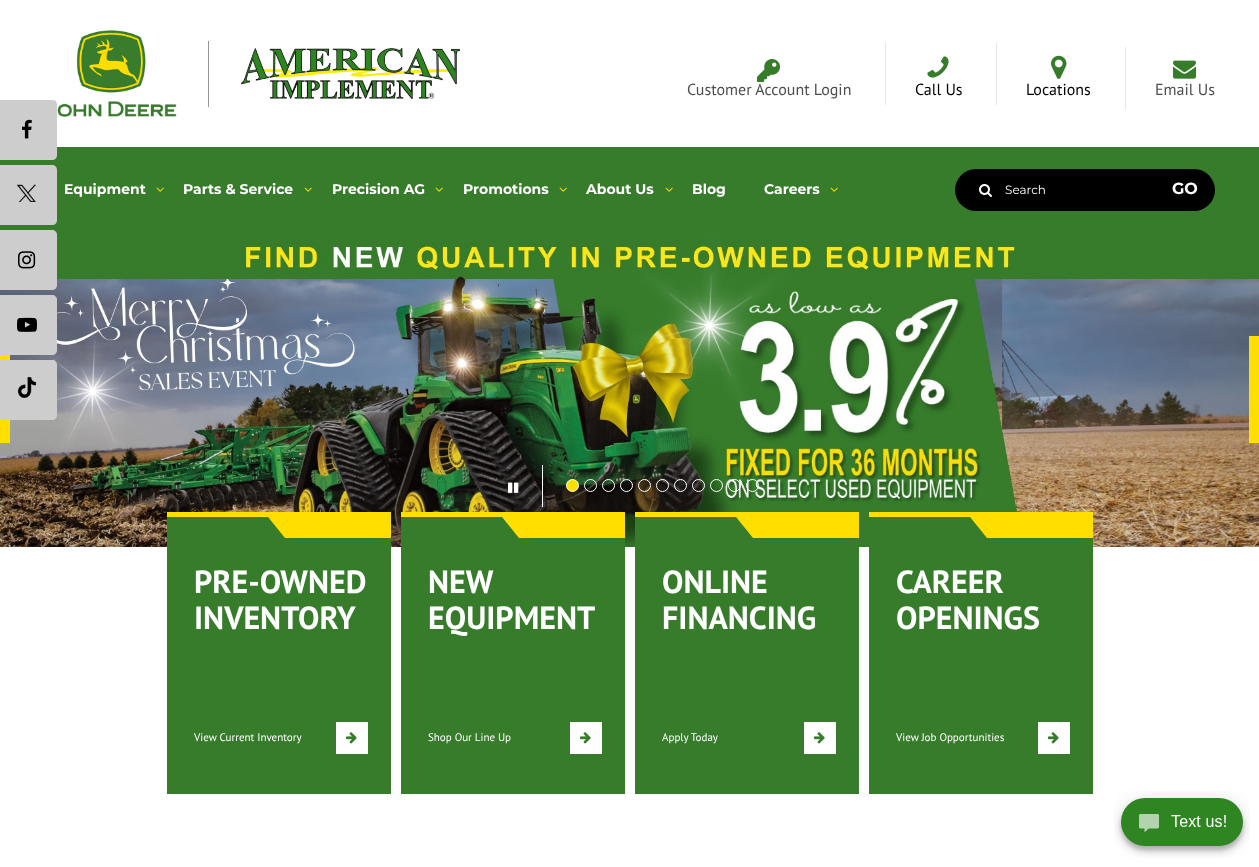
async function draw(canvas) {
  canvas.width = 1259;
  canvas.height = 867;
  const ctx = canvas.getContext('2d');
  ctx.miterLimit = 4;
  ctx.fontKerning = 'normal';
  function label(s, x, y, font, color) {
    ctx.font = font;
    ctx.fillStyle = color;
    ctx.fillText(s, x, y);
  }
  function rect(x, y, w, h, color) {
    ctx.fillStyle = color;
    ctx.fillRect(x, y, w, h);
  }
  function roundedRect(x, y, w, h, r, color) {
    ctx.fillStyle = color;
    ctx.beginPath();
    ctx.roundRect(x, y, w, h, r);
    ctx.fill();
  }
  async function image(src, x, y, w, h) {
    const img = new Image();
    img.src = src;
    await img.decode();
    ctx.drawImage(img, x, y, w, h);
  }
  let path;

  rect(0, 0, 1259, 867, '#fff');
  await image('assets/img6.png', 55, 30, 122, 87);
  rect(0, 147, 1259, 85, '#367c2b');
  ctx.fillStyle = '#cdcdcd';
  path = new Path2D('M-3 100H52C55 100 57 102 57 105V155C57 158 55 160 52 160H-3Z');
  ctx.fill(path);
  await image('assets/img1.png', 22, 119, 10, 20);
  path = new Path2D('M-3 165H52C55 165 57 167 57 170V220C57 223 55 225 52 225H-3Z');
  ctx.fill(path);
  await image('assets/img2.png', 16, 184, 20, 18);
  await image('assets/img14.png', 0, 232, 1259, 315);
  path = new Path2D('M-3 230H52C55 230 57 232 57 235V285C57 288 55 290 52 290H-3Z');
  ctx.fill(path);
  await image('assets/img3.png', 18, 251, 18, 18);
  path = new Path2D('M-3 295H52C55 295 57 297 57 300V350C57 353 55 355 52 355H-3Z');
  ctx.fill(path);
  await image('assets/img4.png', 17, 317, 20, 15);
  rect(0, 355, 10, 88, '#ffde00');
  ctx.fillStyle = '#cdcdcd';
  path = new Path2D('M-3 360H52C55 360 57 362 57 365V415C57 418 55 420 52 420H-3Z');
  ctx.fill(path);
  await image('assets/img5.png', 17, 377, 20, 21);
  rect(208, 41, 1, 66, '#959595');
  await image('assets/img7.png', 241, 48, 219, 51);
  await image('assets/img8.png', 757, 59, 23, 23);
  label('Customer Account Login', 687, 95, '16px PT Sans', '#4e4e4e');
  rect(885, 43, 1, 62, '#e6e6e6');
  await image('assets/img9.png', 927, 56, 22, 22);
  label('Call Us', 915, 95, '16px PT Sans', '#000');
  rect(996, 43, 1, 62, '#e6e6e6');
  await image('assets/img10.png', 1051, 55, 16, 24);
  label('Locations', 1026, 95, '16px PT Sans', '#000');
  rect(1125, 47, 1, 62, '#e6e6e6');
  await image('assets/img11.png', 1173, 60, 23, 19);
  label('Email Us', 1155, 95, '16px PT Sans', '#4e4e4e');
  label('Equipment', 64, 194, 'bold 14px Montserrat', '#fff');
  await image('assets/img12.png', 156, 187, 8, 5);
  label('Parts & Service', 183, 194, 'bold 14px Montserrat', '#fff');
  await image('assets/img12.png', 304, 187, 8, 5);
  label('Precision AG', 332, 194, 'bold 14px Montserrat', '#fff');
  await image('assets/img12.png', 435, 187, 8, 5);
  label('Promotions', 463, 194, 'bold 14px Montserrat', '#fff');
  await image('assets/img12.png', 559, 187, 8, 5);
  label('About Us', 586, 194, 'bold 14px Montserrat', '#fff');
  await image('assets/img12.png', 665, 187, 8, 5);
  label('Blog', 692, 194, 'bold 14px Montserrat', '#fff');
  label('Careers', 764, 194, 'bold 14px Montserrat', '#fff');
  await image('assets/img12.png', 830, 187, 8, 5);
  roundedRect(955, 169, 260, 42, 21, '#000');
  await image('assets/img13.png', 979, 184, 13, 13);
  label('Search', 1005, 194, '12px Montserrat', '#fff');
  label('GO', 1172, 194, 'bold 16px Montserrat', '#fff');
  rect(1249, 336, 10, 107, '#ffde00');
  rect(542, 465, 1, 42, '#fff');
  await image('assets/img15.png', 508, 482, 11, 11);
  ctx.fillStyle = '#ffde00';
  ctx.beginPath();
  ctx.arc(572.5, 485.5, 6, 0, 2 * Math.PI);
  ctx.fill();
  ctx.strokeStyle = '#fff';
  ctx.stroke();
  ctx.beginPath();
  ctx.arc(590.5, 485.5, 6, 0, 2 * Math.PI);
  ctx.stroke();
  ctx.beginPath();
  ctx.arc(608.5, 485.5, 6, 0, 2 * Math.PI);
  ctx.stroke();
  ctx.beginPath();
  ctx.arc(626.5, 485.5, 6, 0, 2 * Math.PI);
  ctx.stroke();
  ctx.beginPath();
  ctx.arc(644.5, 485.5, 6, 0, 2 * Math.PI);
  ctx.stroke();
  ctx.beginPath();
  ctx.arc(662.5, 485.5, 6, 0, 2 * Math.PI);
  ctx.stroke();
  ctx.beginPath();
  ctx.arc(680.5, 485.5, 6, 0, 2 * Math.PI);
  ctx.stroke();
  ctx.beginPath();
  ctx.arc(698.5, 485.5, 6, 0, 2 * Math.PI);
  ctx.stroke();
  ctx.beginPath();
  ctx.arc(716.5, 485.5, 6, 0, 2 * Math.PI);
  ctx.stroke();
  ctx.beginPath();
  ctx.arc(734.5, 485.5, 6, 0, 2 * Math.PI);
  ctx.stroke();
  ctx.beginPath();
  ctx.arc(752.5, 485.5, 6, 0, 2 * Math.PI);
  ctx.stroke();
  rect(167, 517, 224, 277, '#367c2b');
  rect(167, 512, 101, 5, '#ffde00');
  ctx.save();
  ctx.beginPath();
  ctx.rect(167, 512, 224, 282);
  ctx.clip();
  path = new Path2D('M264 512H430L451 538H285Z');
  ctx.fill(path);
  ctx.restore();
  label('PRE-OWNED', 194, 593, 'bold 32px PT Sans', '#fff');
  label('INVENTORY', 194, 629, 'bold 32px PT Sans', '#fff');
  label('View Current Inventory', 194, 741, '11px PT Sans', '#fff');
  rect(336, 722, 32, 32, '#fff');
  await image('assets/img16.png', 346, 732, 11, 12);
  rect(401, 517, 224, 277, '#367c2b');
  rect(401, 512, 101, 5, '#ffde00');
  ctx.save();
  ctx.beginPath();
  ctx.rect(401, 512, 224, 282);
  ctx.clip();
  path = new Path2D('M498 512H664L685 538H519Z');
  ctx.fill(path);
  ctx.restore();
  label('NEW', 428, 593, 'bold 32px PT Sans', '#fff');
  label('EQUIPMENT', 428, 629, 'bold 32px PT Sans', '#fff');
  label('Shop Our Line Up', 428, 741, '11px PT Sans', '#fff');
  rect(570, 722, 32, 32, '#fff');
  await image('assets/img16.png', 580, 732, 11, 12);
  rect(635, 517, 224, 277, '#367c2b');
  rect(635, 512, 101, 5, '#ffde00');
  ctx.save();
  ctx.beginPath();
  ctx.rect(635, 512, 224, 282);
  ctx.clip();
  path = new Path2D('M732 512H898L919 538H753Z');
  ctx.fill(path);
  ctx.restore();
  label('ONLINE', 662, 593, 'bold 32px PT Sans', '#fff');
  label('FINANCING', 662, 629, 'bold 32px PT Sans', '#fff');
  label('Apply Today', 662, 741, '11px PT Sans', '#fff');
  rect(804, 722, 32, 32, '#fff');
  await image('assets/img16.png', 814, 732, 11, 12);
  rect(869, 517, 224, 277, '#367c2b');
  rect(869, 512, 101, 5, '#ffde00');
  ctx.save();
  ctx.beginPath();
  ctx.rect(869, 512, 224, 282);
  ctx.clip();
  path = new Path2D('M966 512H1132L1153 538H987Z');
  ctx.fill(path);
  ctx.restore();
  label('CAREER', 896, 593, 'bold 32px PT Sans', '#fff');
  label('OPENINGS', 896, 629, 'bold 32px PT Sans', '#fff');
  label('View Job Opportunities', 896, 741, '11px PT Sans', '#fff');
  rect(1038, 722, 32, 32, '#fff');
  await image('assets/img16.png', 1048, 732, 11, 12);
  await image('assets/img17.png', 1114, 791, 136, 67);
}

draw(document.querySelector('canvas'));
